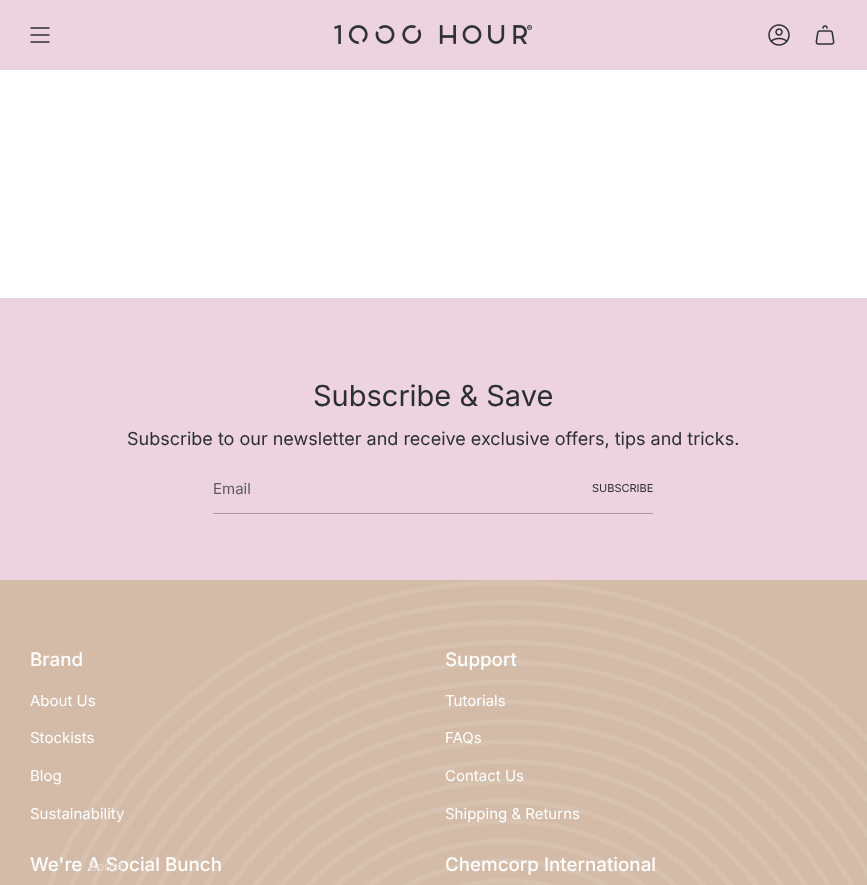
async function draw(canvas) {
  canvas.width = 867;
  canvas.height = 885;
  const ctx = canvas.getContext('2d');
  ctx.miterLimit = 4;
  ctx.fontKerning = 'normal';
  function label(s, x, y, font, color) {
    ctx.font = font;
    ctx.fillStyle = color;
    ctx.fillText(s, x, y);
  }
  function rect(x, y, w, h, color) {
    ctx.fillStyle = color;
    ctx.fillRect(x, y, w, h);
  }
  async function image(src, x, y, w, h) {
    const img = new Image();
    img.src = src;
    await img.decode();
    ctx.drawImage(img, x, y, w, h);
  }
  let path;

  rect(0, 0, 867, 885, '#fff');
  rect(0, 0, 867, 70, '#edd3df');
  path = new Path2D('M31 28H49M31 35H49M31 42H49');
  ctx.strokeStyle = '#2c2e35';
  ctx.lineWidth = 1.5;
  ctx.lineCap = 'round';
  ctx.lineJoin = 'round';
  ctx.stroke(path);
  await image('assets/img1.png', 334, 25, 198, 19);
  await image('assets/img2.png', 768, 24, 22, 22);
  await image('assets/img3.png', 815, 25, 20, 20);
  rect(0, 298, 867, 282, '#edd3df');
  label('Subscribe & Save', 313, 406, '29px Inter', '#2c2e35');
  label('Subscribe to our newsletter and receive exclusive offers, tips and tricks.', 127, 445, '18px Inter', '#2c2e35');
  rect(213, 513, 440, 1, '#a999a4');
  label('Email', 213, 494, '15px Inter', '#5c5760');
  label('SUBSCRIBE', 592, 492, '11px Inter', '#2c2e35');
  rect(0, 580, 867, 305, '#d3bba8');
  await image('assets/img4.png', 47, 580, 820, 305);
  label('Brand', 30, 666, '500 18.75px Inter', '#fff');
  label('About Us', 30, 706, '15px Inter', '#fff');
  label('Stockists', 30, 743, '15px Inter', '#fff');
  label('Blog', 30, 781, '15px Inter', '#fff');
  label('Sustainability', 30, 819, '15px Inter', '#fff');
  label('Support', 445, 666, '500 18.75px Inter', '#fff');
  label('Tutorials', 445, 706, '15px Inter', '#fff');
  label('FAQs', 445, 743, '15px Inter', '#fff');
  label('Contact Us', 445, 781, '15px Inter', '#fff');
  label('Shipping & Returns', 445, 819, '15px Inter', '#fff');
  label('We\'re A Social Bunch', 30, 871, '500 18.75px Inter', '#fff');
  label('Chemcorp International', 445, 871, '500 18.75px Inter', '#fff');
  label('Boost', 88, 871, '13px Inter', '#e3d3c7');
}

draw(document.querySelector('canvas'));
